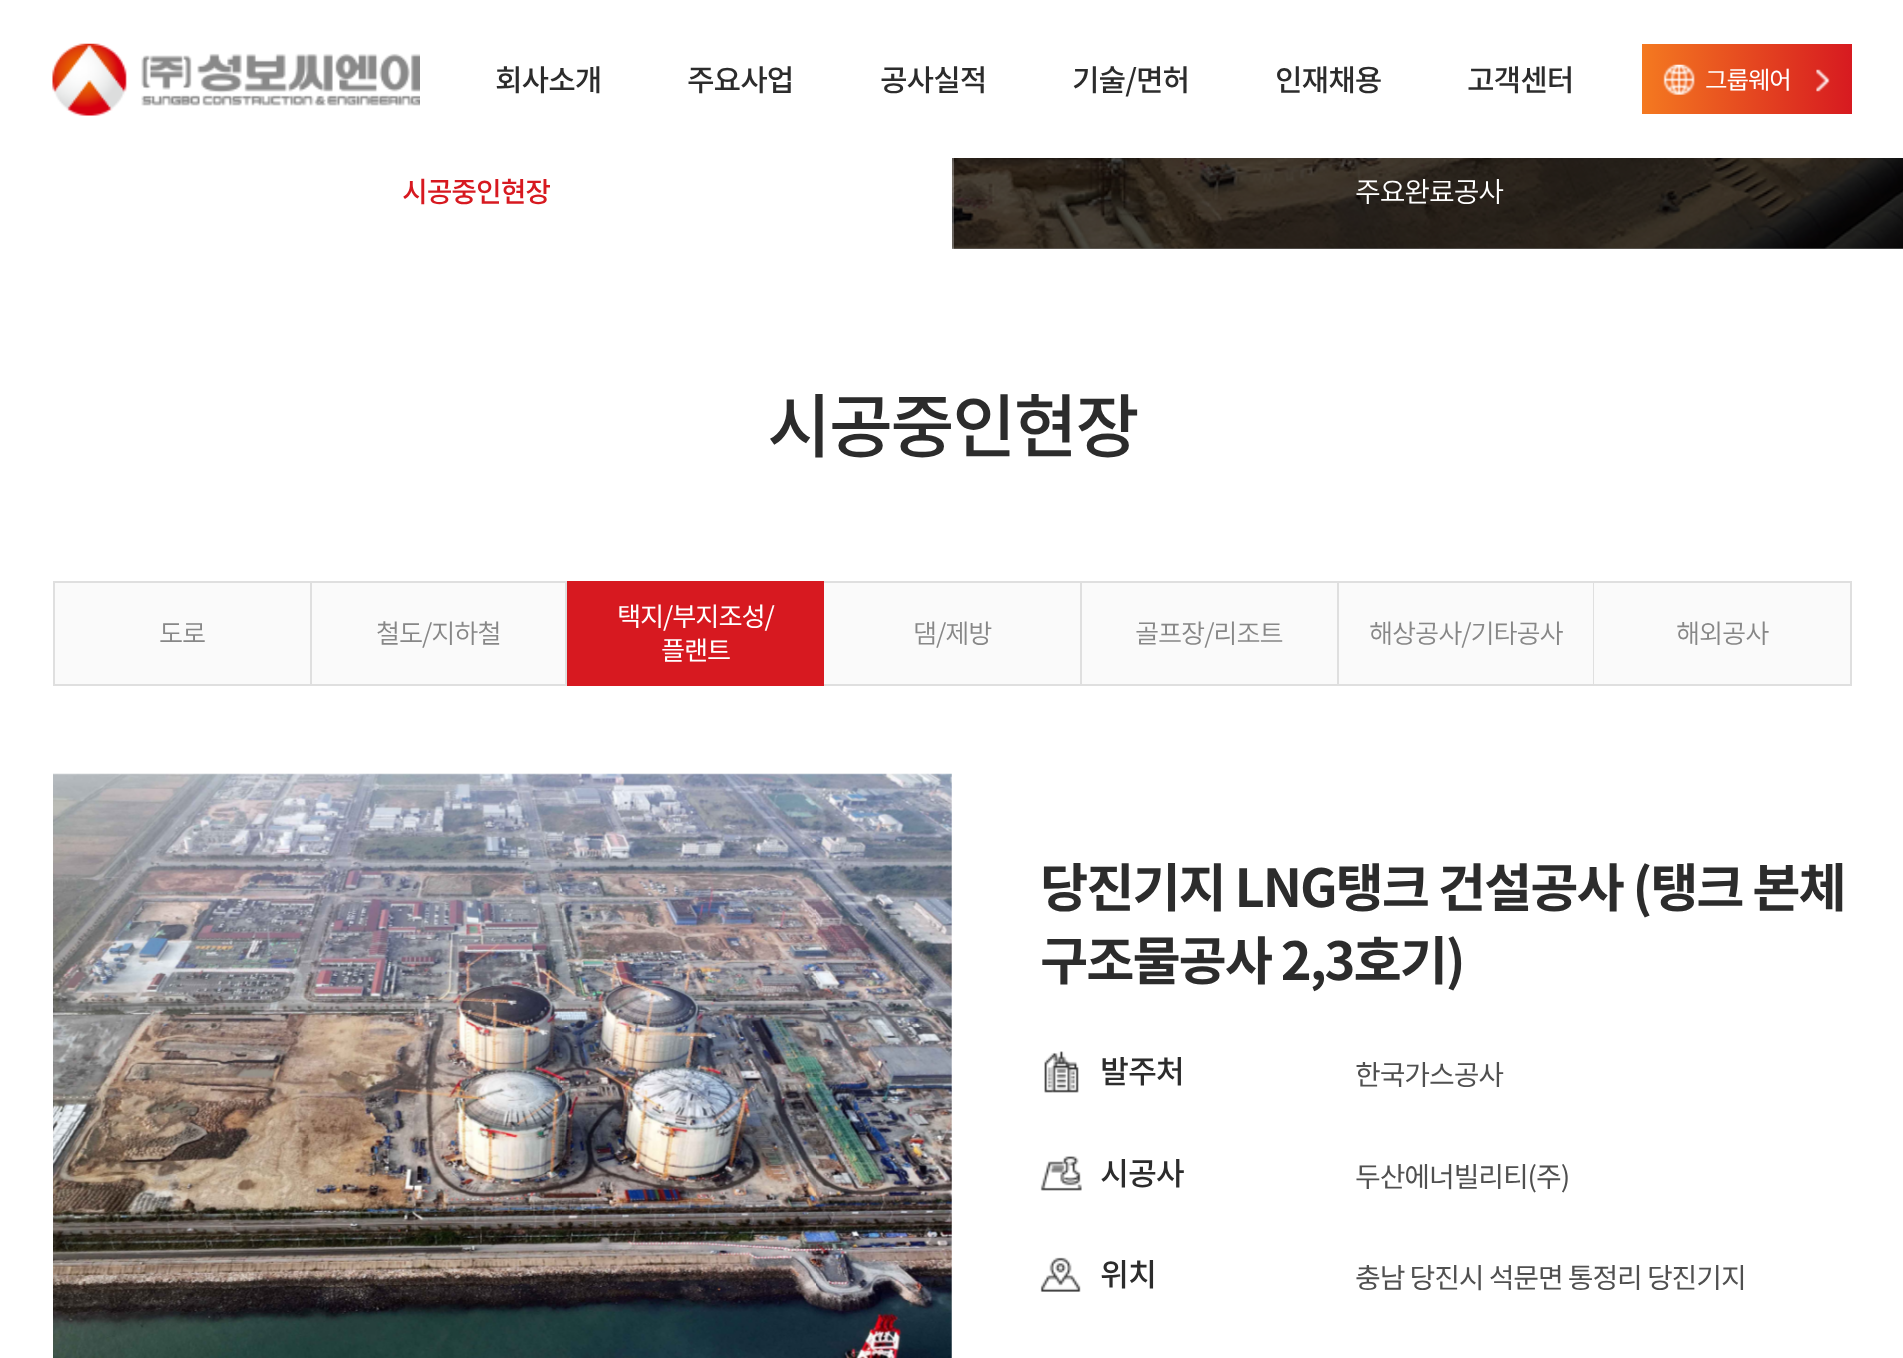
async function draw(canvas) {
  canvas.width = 1903;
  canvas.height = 1358;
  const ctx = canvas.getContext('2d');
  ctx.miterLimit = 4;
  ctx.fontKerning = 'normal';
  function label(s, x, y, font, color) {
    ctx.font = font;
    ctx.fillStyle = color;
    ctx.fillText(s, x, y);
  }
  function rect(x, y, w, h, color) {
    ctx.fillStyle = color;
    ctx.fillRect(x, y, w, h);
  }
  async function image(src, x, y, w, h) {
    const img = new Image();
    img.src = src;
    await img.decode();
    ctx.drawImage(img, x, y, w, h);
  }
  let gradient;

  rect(0, 0, 1903, 1358, '#fff');
  await image('assets/img1.png', 52, 43, 368, 73);
  ctx.letterSpacing = '-1px';
  label('회사소개', 495, 91, '500 30px Noto Sans KR', '#2c2c2c');
  label('주요사업', 687, 91, '500 30px Noto Sans KR', '#2c2c2c');
  label('공사실적', 880, 91, '500 30px Noto Sans KR', '#2c2c2c');
  label('기술/면허', 1072, 91, '500 30px Noto Sans KR', '#2c2c2c');
  label('인재채용', 1275, 91, '500 30px Noto Sans KR', '#2c2c2c');
  label('고객센터', 1467, 91, '500 30px Noto Sans KR', '#2c2c2c');
  gradient = ctx.createLinearGradient(1642, 79, 1852, 79);
  gradient.addColorStop(0, '#f47920');
  gradient.addColorStop(1, '#d71a20');
  ctx.fillStyle = gradient;
  ctx.fillRect(1642, 44, 210, 70);
  await image('assets/img2.png', 1663, 64, 32, 31);
  ctx.letterSpacing = '-1.1px';
  label('그룹웨어', 1705, 89, '24.5px Noto Sans KR', '#fff');
  await image('assets/img3.png', 1816, 69, 14, 23);
  await image('assets/img4.png', 952, 158, 951, 91);
  rect(952, 158, 951, 91, '#0000008c');
  label('시공중인현장', 402, 202, '500 28px Noto Sans KR', '#d71920');
  rect(952, 158, 2, 91, '#ffffff4d');
  label('주요완료공사', 1355, 202, '300 28px Noto Sans KR', '#fff');
  ctx.letterSpacing = '-2.75px';
  label('시공중인현장', 767, 452, '500 70px Noto Sans KR', '#2c2c2c');
  ctx.fillStyle = '#fafafa';
  ctx.beginPath();
  ctx.rect(54, 582, 257, 103);
  ctx.fill();
  ctx.strokeStyle = '#dfdfdf';
  ctx.lineWidth = 2;
  ctx.stroke();
  ctx.letterSpacing = '-1.1px';
  label('도로', 159, 643, '300 26.25px Noto Sans KR', '#878787');
  rect(312, 583, 253, 101, '#fafafa');
  rect(312, 581, 255, 2, '#dfdfdf');
  rect(565, 581, 2, 105, '#dfdfdf');
  rect(312, 684, 255, 2, '#dfdfdf');
  label('철도/지하철', 376, 643, '300 26.25px Noto Sans KR', '#878787');
  rect(567, 581, 257, 105, '#d71920');
  label('택지/부지조성/', 617, 626, '26.25px Noto Sans KR', '#fff');
  label('플랜트', 661, 660, '26.25px Noto Sans KR', '#fff');
  rect(824, 583, 256, 101, '#fafafa');
  rect(824, 581, 1028, 2, '#dfdfdf');
  rect(1080, 581, 2, 105, '#dfdfdf');
  rect(824, 684, 258, 2, '#dfdfdf');
  label('댐/제방', 913, 643, '300 26.25px Noto Sans KR', '#878787');
  rect(1082, 583, 255, 101, '#fafafa');
  rect(1337, 581, 2, 105, '#dfdfdf');
  rect(1082, 684, 257, 2, '#dfdfdf');
  label('골프장/리조트', 1135, 643, '300 26.25px Noto Sans KR', '#878787');
  rect(1339, 583, 254, 101, '#fafafa');
  rect(1593, 581, 1, 105, '#dfdfdf');
  rect(1339, 684, 255, 2, '#dfdfdf');
  label('해상공사/기타공사', 1369, 643, '300 26.25px Noto Sans KR', '#878787');
  rect(1594, 583, 256, 101, '#fafafa');
  rect(1850, 581, 2, 105, '#dfdfdf');
  rect(1594, 684, 258, 2, '#dfdfdf');
  label('해외공사', 1676, 643, '300 26.25px Noto Sans KR', '#878787');
  await image('assets/img5.png', 53, 773, 899, 585);
  ctx.letterSpacing = '-2.1px';
  label('당진기지 LNG탱크 건설공사 (탱크 본체', 1040, 907, 'bold 52.5px Noto Sans KR', '#2c2c2c');
  label('구조물공사 2,3호기)', 1040, 980, 'bold 52.5px Noto Sans KR', '#2c2c2c');
  await image('assets/img6.png', 1044, 1051, 35, 42);
  ctx.letterSpacing = '-1.1px';
  label('발주처', 1100, 1083, '500 31.5px Noto Sans KR', '#2c2c2c');
  label('한국가스공사', 1355, 1085, '28px Noto Sans KR', '#505050');
  await image('assets/img7.png', 1040, 1156, 42, 35);
  label('시공사', 1100, 1185, '500 31.5px Noto Sans KR', '#2c2c2c');
  label('두산에너빌리티(주)', 1355, 1187, '28px Noto Sans KR', '#505050');
  await image('assets/img8.png', 1040, 1257, 41, 35);
  label('위치', 1100, 1286, '500 31.5px Noto Sans KR', '#2c2c2c');
  label('충남 당진시 석문면 통정리 당진기지', 1355, 1288, '28px Noto Sans KR', '#505050');
}

draw(document.querySelector('canvas'));
